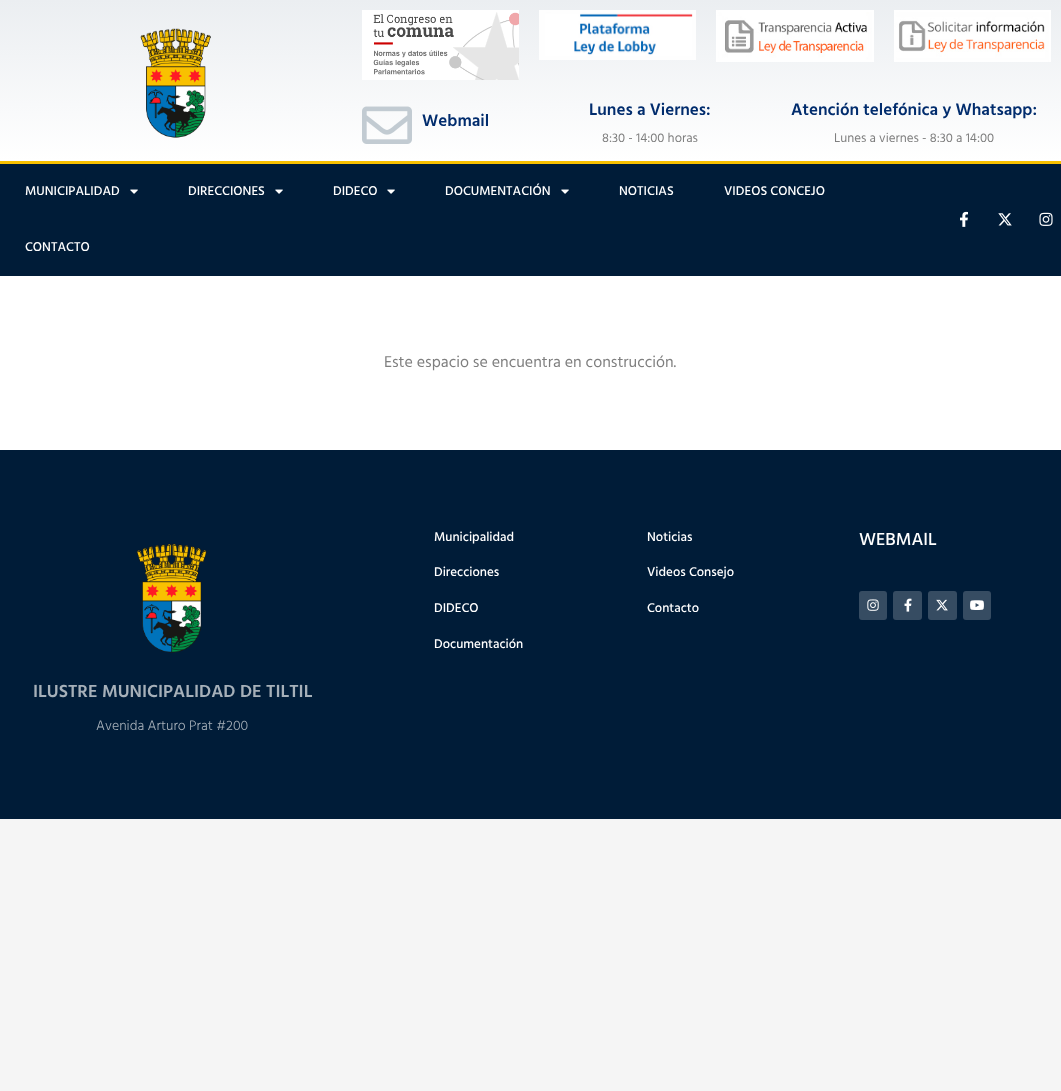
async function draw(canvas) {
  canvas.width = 1061;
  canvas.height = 1091;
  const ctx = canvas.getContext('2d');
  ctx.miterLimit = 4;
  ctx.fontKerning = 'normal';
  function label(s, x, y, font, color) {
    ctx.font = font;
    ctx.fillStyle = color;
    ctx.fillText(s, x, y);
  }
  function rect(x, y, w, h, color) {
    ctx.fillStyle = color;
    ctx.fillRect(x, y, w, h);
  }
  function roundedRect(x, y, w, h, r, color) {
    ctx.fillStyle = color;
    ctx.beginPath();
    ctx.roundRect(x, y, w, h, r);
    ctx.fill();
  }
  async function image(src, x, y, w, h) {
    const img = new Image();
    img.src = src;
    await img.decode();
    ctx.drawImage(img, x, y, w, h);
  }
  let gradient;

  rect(0, 0, 1061, 1091, '#f5f5f5');
  rect(0, 276, 1061, 174, '#fff');
  gradient = ctx.createLinearGradient(531, 0, 531, 161);
  gradient.addColorStop(0, '#ebeef1');
  gradient.addColorStop(1, '#fff');
  ctx.fillStyle = gradient;
  ctx.fillRect(0, 0, 1061, 161);
  await image('assets/img1.png', 140, 28, 71, 110);
  await image('assets/img2.png', 362, 10, 157, 70);
  await image('assets/img3.png', 539, 10, 157, 50);
  await image('assets/img4.png', 716, 10, 158, 52);
  await image('assets/img5.png', 894, 10, 157, 52);
  await image('assets/img6.png', 362, 106, 50, 38);
  label('Webmail', 422, 126, '600 17px Hind', '#012c6d');
  label('Lunes a Viernes:', 589, 115, '600 17px Hind', '#012c6d');
  label('8:30 - 14:00 horas', 602, 142, '13px Hind', '#7f7f7f');
  label('Atención telefónica y Whatsapp:', 791, 115, '600 17px Hind', '#012c6d');
  label('Lunes a viernes - 8:30 a 14:00', 834, 142, '13px Hind', '#7f7f7f');
  rect(0, 164, 1061, 112, '#001c38');
  rect(0, 161, 1061, 3, '#f9c100');
  label('MUNICIPALIDAD', 25, 195, '500 13px Hind', '#fff');
  await image('assets/img7.png', 130, 189, 8, 5);
  label('DIRECCIONES', 188, 195, '500 13px Hind', '#fff');
  await image('assets/img7.png', 275, 189, 8, 5);
  label('DIDECO', 333, 195, '500 13px Hind', '#fff');
  await image('assets/img7.png', 387, 189, 8, 5);
  label('DOCUMENTACIÓN', 445, 195, '500 13px Hind', '#fff');
  await image('assets/img7.png', 561, 189, 8, 5);
  label('NOTICIAS', 619, 195, '500 13px Hind', '#fff');
  label('VIDEOS CONCEJO', 724, 195, '500 13px Hind', '#fff');
  label('CONTACTO', 25, 251, '500 13px Hind', '#fff');
  await image('assets/img8.png', 960, 211, 8, 16);
  await image('assets/img9.png', 998, 213, 14, 13);
  await image('assets/img10.png', 1039, 212, 14, 14);
  label('Este espacio se encuentra en construcción.', 384, 367, '16px Hind', '#7f7f7f');
  rect(0, 450, 1061, 369, '#001c38');
  label('Municipalidad', 434, 541, '500 13px Hind', '#fff');
  label('Direcciones', 434, 576, '500 13px Hind', '#fff');
  label('DIDECO', 434, 612, '500 13px Hind', '#fff');
  label('Documentación', 434, 648, '500 13px Hind', '#fff');
  label('Noticias', 647, 541, '500 13px Hind', '#fff');
  label('Videos Consejo', 647, 576, '500 13px Hind', '#fff');
  label('Contacto', 647, 612, '500 13px Hind', '#fff');
  label('WEBMAIL', 859, 545, '500 18px Hind', '#fff');
  roundedRect(859, 591, 28, 29, 3, '#364c62');
  await image('assets/img11.png', 867, 599, 12, 12);
  roundedRect(893, 591, 29, 29, 3, '#364c62');
  await image('assets/img12.png', 904, 598, 8, 14);
  roundedRect(928, 591, 29, 29, 3, '#364c62');
  await image('assets/img13.png', 936, 599, 12, 12);
  roundedRect(963, 591, 28, 29, 3, '#364c62');
  await image('assets/img14.png', 970, 600, 14, 10);
  await image('assets/img15.png', 136, 543, 71, 110);
  label('ILUSTRE MUNICIPALIDAD DE TILTIL', 33, 697, '600 18px Hind', '#a6b0b9');
  label('Avenida Arturo Prat #200', 96, 730, '300 14px Hind', '#a6b0b9');
}

draw(document.querySelector('canvas'));
